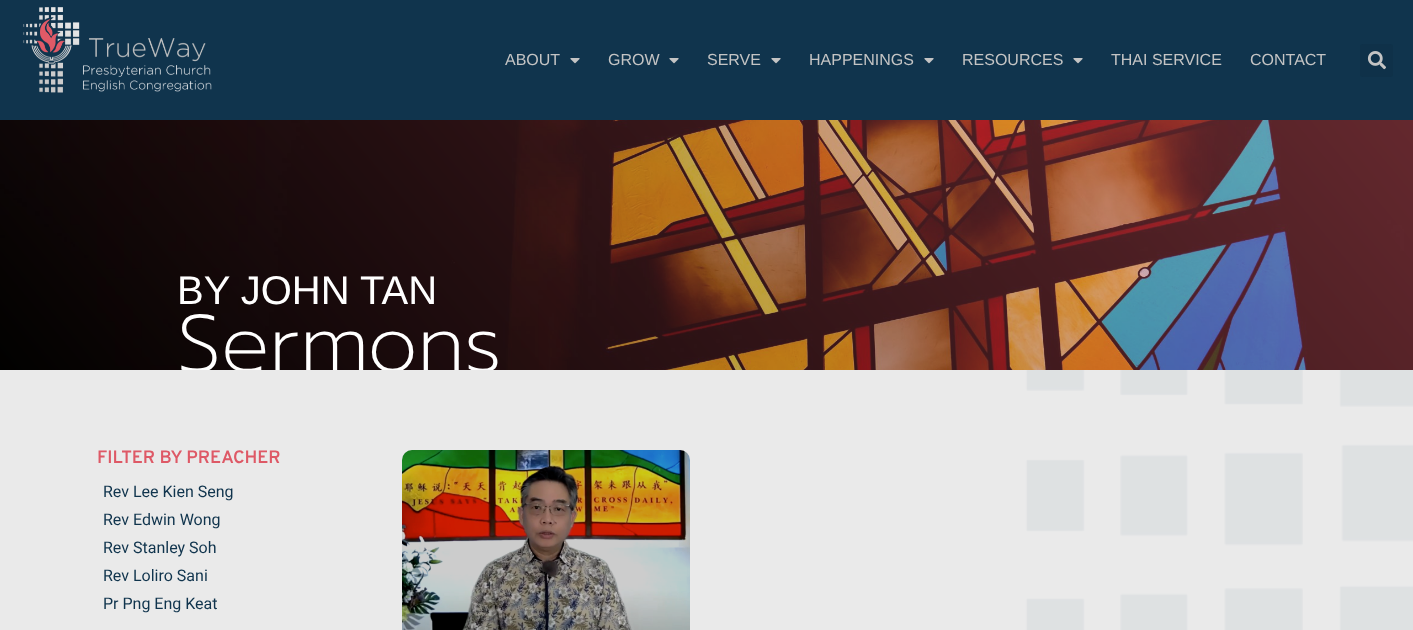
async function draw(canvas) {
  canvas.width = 1413;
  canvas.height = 630;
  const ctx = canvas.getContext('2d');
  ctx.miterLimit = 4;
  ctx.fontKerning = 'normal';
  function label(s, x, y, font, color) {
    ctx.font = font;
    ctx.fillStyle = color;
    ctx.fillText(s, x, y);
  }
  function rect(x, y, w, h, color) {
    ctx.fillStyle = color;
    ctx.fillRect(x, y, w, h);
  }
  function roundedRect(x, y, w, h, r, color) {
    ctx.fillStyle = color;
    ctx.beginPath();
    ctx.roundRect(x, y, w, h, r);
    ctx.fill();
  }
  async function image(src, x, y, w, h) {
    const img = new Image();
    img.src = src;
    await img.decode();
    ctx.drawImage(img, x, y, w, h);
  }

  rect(0, 0, 1413, 630, '#fff');
  rect(0, 0, 1413, 120, '#10344d');
  await image('assets/img1.png', 23, 7, 189, 86);
  label('ABOUT', 505, 65, '16px Liberation Sans', '#c4c4c4');
  await image('assets/img2.png', 570, 58, 10, 6);
  label('GROW', 608, 65, '16px Liberation Sans', '#c4c4c4');
  await image('assets/img2.png', 669, 58, 10, 6);
  label('SERVE', 707, 65, '16px Liberation Sans', '#c4c4c4');
  await image('assets/img2.png', 771, 58, 10, 6);
  label('HAPPENINGS', 809, 65, '16px Liberation Sans', '#c4c4c4');
  await image('assets/img2.png', 924, 58, 10, 6);
  label('RESOURCES', 962, 65, '16px Liberation Sans', '#c4c4c4');
  await image('assets/img2.png', 1073, 58, 10, 6);
  label('THAI SERVICE', 1111, 65, '16px Liberation Sans', '#c4c4c4');
  label('CONTACT', 1250, 65, '16px Liberation Sans', '#c4c4c4');
  roundedRect(1360, 44, 33, 33, 3, '#0f3149');
  await image('assets/img3.png', 1367, 51, 19, 19);
  await image('assets/img4.png', 0, 120, 1413, 250);
  label('BY JOHN TAN', 177, 304, '40px Liberation Sans', '#fff');
  label('Sermons', 177, 371, '200 80px Prompt', '#fff');
  await image('assets/img5.png', 1025, 370, 388, 260);
  rect(0, 370, 1413, 260, '#e9e9e9f2');
  label('FILTER BY PREACHER', 97, 463, '600 18px Overpass', '#de5966');
  label('Rev Lee Kien Seng', 103, 497, '16px Roboto', '#10344d');
  label('Rev Edwin Wong', 103, 525, '16px Roboto', '#10344d');
  label('Rev Stanley Soh', 103, 553, '16px Roboto', '#10344d');
  label('Rev Loliro Sani', 103, 581, '16px Roboto', '#10344d');
  label('Pr Png Eng Keat', 103, 609, '16px Roboto', '#10344d');
  await image('assets/img6.png', 402, 450, 288, 180);
}

draw(document.querySelector('canvas'));
